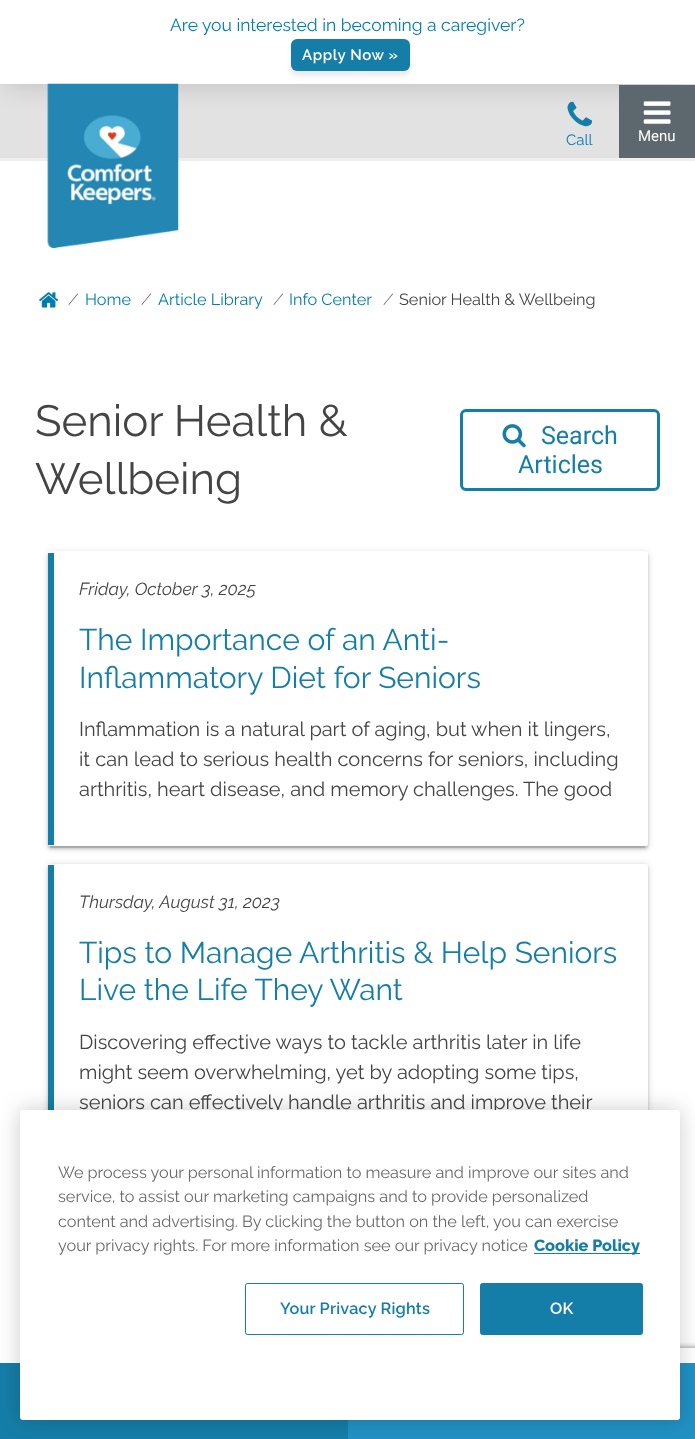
async function draw(canvas) {
  canvas.width = 695;
  canvas.height = 1439;
  const ctx = canvas.getContext('2d');
  ctx.miterLimit = 4;
  ctx.fontKerning = 'normal';
  function label(s, x, y, font, color) {
    ctx.font = font;
    ctx.fillStyle = color;
    ctx.fillText(s, x, y);
  }
  function rect(x, y, w, h, color) {
    ctx.fillStyle = color;
    ctx.fillRect(x, y, w, h);
  }
  function roundedRect(x, y, w, h, r, color) {
    ctx.fillStyle = color;
    ctx.beginPath();
    ctx.roundRect(x, y, w, h, r);
    ctx.fill();
  }
  async function image(src, x, y, w, h) {
    const img = new Image();
    img.src = src;
    await img.decode();
    ctx.drawImage(img, x, y, w, h);
  }

  rect(0, 0, 695, 1439, '#fff');
  rect(0, 84, 695, 74, '#e2e2e2');
  ctx.fillStyle = '#0000002e';
  ctx.filter = 'blur(14px)';
  ctx.beginPath();
  ctx.rect(6, 11, 683, 72);
  ctx.fill();
  ctx.filter = 'none';
  rect(0, 0, 695, 84, '#fff');
  label('Are you interested in becoming a caregiver?', 170, 31, '17.5px Raleway', '#007db0');
  ctx.fillStyle = '#00000014';
  ctx.filter = 'blur(2.5px)';
  ctx.beginPath();
  ctx.roundRect(291, 44, 119, 32, 6);
  ctx.fill();
  ctx.filter = 'none';
  roundedRect(291, 39, 119, 32, 6, '#157ea8');
  ctx.letterSpacing = '0.6px';
  label('Apply Now »', 302, 60, '600 15px Raleway', '#fff');
  rect(0, 158, 695, 3, '#eee');
  await image('assets/img1.png', 47, 83, 132, 165);
  await image('assets/img2.png', 567, 101, 25, 26);
  ctx.letterSpacing = '0px';
  label('Call', 566, 145, '15px Raleway', '#007db0');
  rect(619, 85, 76, 73, '#5d676e');
  await image('assets/img3.png', 643, 101, 28, 23);
  label('Menu', 638, 141, '15px Roboto', '#fff');
  await image('assets/img4.png', 39, 292, 20, 16);
  label('⁄', 72, 305, '16.25px Raleway', '#5e5e5e');
  label('Home', 85, 305, '16.25px Raleway', '#007db0');
  label('⁄', 145, 305, '16.25px Raleway', '#5e5e5e');
  label('Article Library', 158, 305, '16.25px Raleway', '#007db0');
  label('⁄', 277, 305, '16.25px Raleway', '#5e5e5e');
  label('Info Center', 289, 305, '16.25px Raleway', '#007db0');
  label('⁄', 387, 305, '16.25px Raleway', '#5e5e5e');
  label('Senior Health & Wellbeing', 399, 305, '16.25px Raleway', '#444');
  label('Senior Health &', 35, 436, '43.75px Raleway', '#444');
  label('Wellbeing', 35, 494, '43.75px Raleway', '#444');
  ctx.beginPath();
  ctx.roundRect(461.5, 410.5, 197, 79, 4.5);
  ctx.strokeStyle = '#157ea8';
  ctx.lineWidth = 3;
  ctx.stroke();
  await image('assets/img5.png', 502, 424, 24, 24);
  label('Search', 541, 444, '25px Roboto', '#157ea8');
  label('Articles', 518, 473, '25px Roboto', '#157ea8');
  ctx.fillStyle = '#00000033';
  ctx.filter = 'blur(3px)';
  ctx.beginPath();
  ctx.roundRect(48, 553, 600, 295, 2.5);
  ctx.fill();
  ctx.filter = 'none';
  ctx.fillStyle = '#0000001f';
  ctx.filter = 'blur(0.5px)';
  ctx.beginPath();
  ctx.rect(50, 558, 595, 290);
  ctx.fill();
  ctx.filter = 'none';
  ctx.fillStyle = '#00000024';
  ctx.filter = 'blur(1px)';
  ctx.beginPath();
  ctx.roundRect(48, 554, 600, 295, 2.5);
  ctx.fill();
  ctx.filter = 'none';
  roundedRect(48, 551, 600, 295, 2.5, '#fff');
  rect(48, 553, 6, 292, '#157ea8');
  label('Friday, October 3, 2025', 79, 595, 'italic 17.5px Raleway', '#444');
  label('The Importance of an Anti-', 79, 650, '30px Raleway', '#157ea8');
  label('Inflammatory Diet for Seniors', 79, 688, '30px Raleway', '#157ea8');
  label('Inflammation is a natural part of aging, but when it lingers,', 79, 736, '20px Raleway', '#444');
  label('it can lead to serious health concerns for seniors, including', 79, 766, '20px Raleway', '#444');
  label('arthritis, heart disease, and memory challenges. The good', 79, 796, '20px Raleway', '#444');
  ctx.fillStyle = '#00000033';
  ctx.filter = 'blur(3px)';
  ctx.beginPath();
  ctx.roundRect(48, 865, 600, 295, 2.5);
  ctx.fill();
  ctx.filter = 'none';
  ctx.fillStyle = '#00000024';
  ctx.filter = 'blur(1px)';
  ctx.beginPath();
  ctx.roundRect(48, 866, 600, 295, 2.5);
  ctx.fill();
  ctx.filter = 'none';
  roundedRect(48, 864, 600, 295, 2.5, '#fff');
  rect(48, 865, 6, 245, '#157ea8');
  label('Thursday, August 31, 2023', 79, 908, 'italic 17.5px Raleway', '#444');
  label('Tips to Manage Arthritis & Help Seniors', 79, 963, '30px Raleway', '#157ea8');
  label('Live the Life They Want', 79, 1000, '30px Raleway', '#157ea8');
  label('Discovering effective ways to tackle arthritis later in life', 79, 1049, '20px Raleway', '#444');
  label('might seem overwhelming, yet by adopting some tips,', 79, 1079, '20px Raleway', '#444');
  label('seniors can effectively handle arthritis and improve their', 79, 1109, '20px Raleway', '#444');
  rect(0, 1363, 348, 76, '#157ea8');
  ctx.save();
  ctx.beginPath();
  ctx.rect(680, 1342, 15, 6);
  ctx.clip();
  ctx.fillStyle = '#808080';
  ctx.filter = 'blur(3px)';
  ctx.beginPath();
  ctx.roundRect(608, 1348, 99, 75, 2.5);
  ctx.fill();
  ctx.filter = 'none';
  ctx.restore();
  rect(348, 1363, 347, 76, '#2191c4');
  ctx.fillStyle = '#00000033';
  ctx.filter = 'blur(11px)';
  ctx.beginPath();
  ctx.roundRect(20, 1110, 660, 310, 3);
  ctx.fill();
  ctx.filter = 'none';
  roundedRect(20, 1110, 660, 310, 3, '#fff');
  label('We process your personal information to measure and improve our sites and', 58, 1178, '16.25px Raleway', '#696969');
  label('service, to assist our marketing campaigns and to provide personalized', 58, 1202, '16.25px Raleway', '#696969');
  label('content and advertising. By clicking the button on the left, you can exercise', 58, 1227, '16.25px Raleway', '#696969');
  label('your privacy rights. For more information see our privacy notice', 58, 1251, '16.25px Raleway', '#696969');
  rect(534, 1253, 106, 1, '#157ea8');
  label('Cookie Policy', 534, 1251, '800 16.25px Raleway', '#157ea8');
  ctx.beginPath();
  ctx.roundRect(245.5, 1283.5, 218, 51, 2);
  ctx.lineWidth = 1;
  ctx.stroke();
  ctx.letterSpacing = '0.2px';
  label('Your Privacy Rights', 280, 1314, '600 16.25px Raleway', '#157ea8');
  ctx.beginPath();
  ctx.roundRect(480.5, 1283.5, 162, 51, 2);
  ctx.fill();
  ctx.stroke();
  label('OK', 550, 1314, '600 16.25px Raleway', '#fff');
}

draw(document.querySelector('canvas'));
